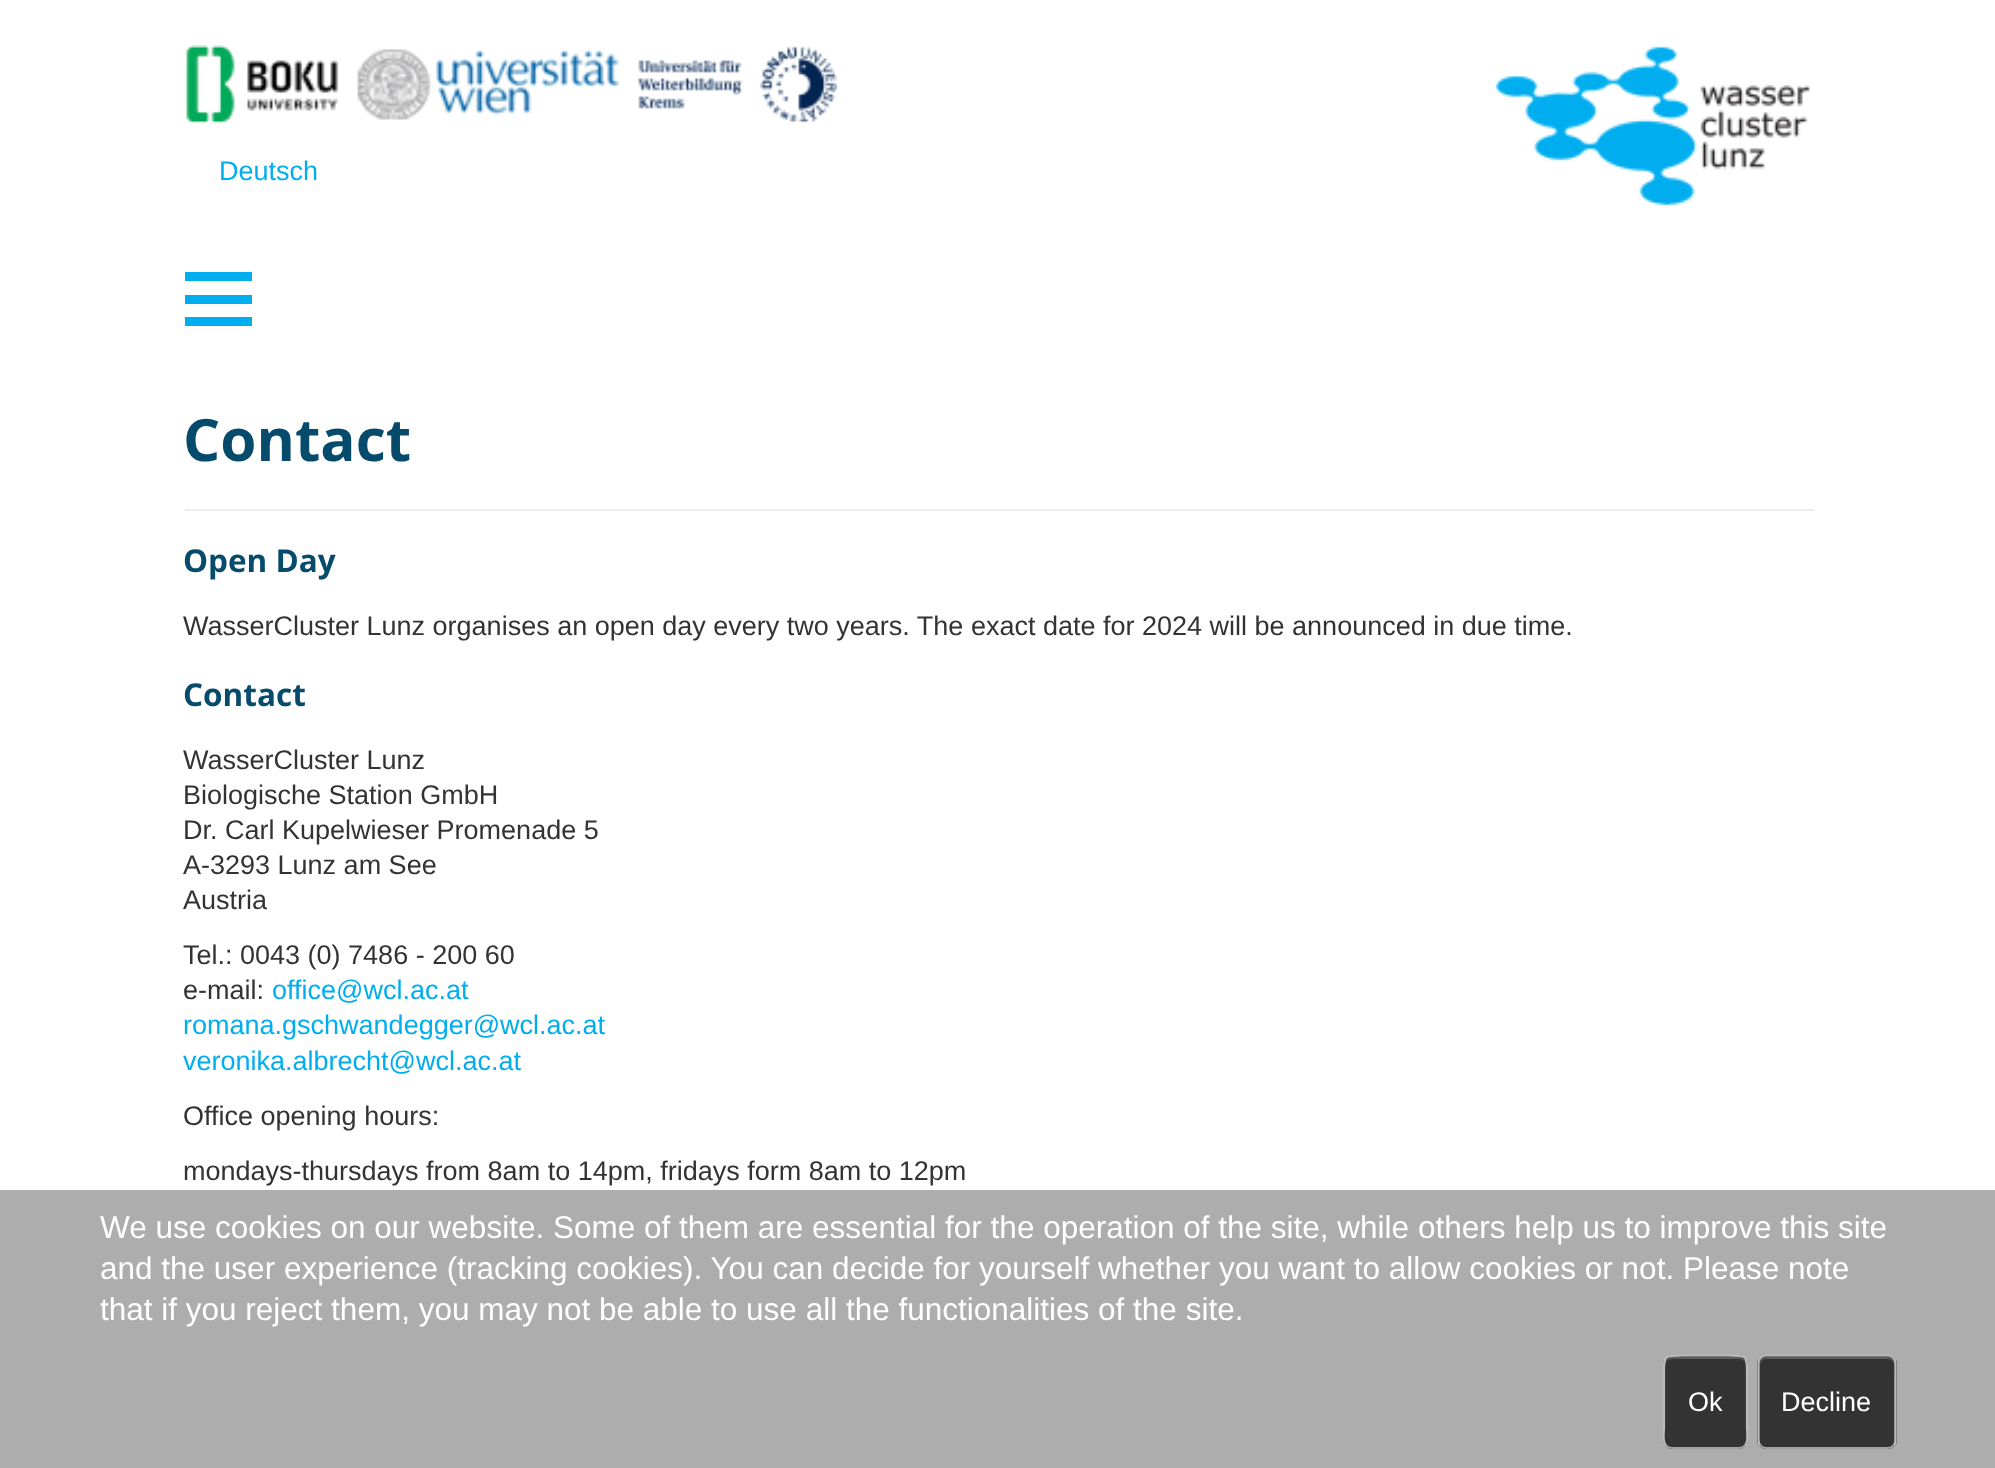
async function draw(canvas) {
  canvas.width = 1995;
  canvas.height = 1468;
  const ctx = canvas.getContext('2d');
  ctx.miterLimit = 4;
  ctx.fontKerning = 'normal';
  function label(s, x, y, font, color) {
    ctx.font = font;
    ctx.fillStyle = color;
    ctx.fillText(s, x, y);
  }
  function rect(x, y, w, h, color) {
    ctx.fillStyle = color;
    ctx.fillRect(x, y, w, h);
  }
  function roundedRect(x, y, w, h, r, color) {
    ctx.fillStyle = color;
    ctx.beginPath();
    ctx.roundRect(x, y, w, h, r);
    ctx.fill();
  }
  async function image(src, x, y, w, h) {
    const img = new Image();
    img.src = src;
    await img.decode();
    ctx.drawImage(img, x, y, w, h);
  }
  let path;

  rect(0, 0, 1995, 1468, '#fff');
  await image('assets/img1.png', 186, 45, 153, 79);
  await image('assets/img2.png', 357, 49, 263, 71);
  await image('assets/img3.png', 637, 46, 200, 77);
  label('Deutsch', 219, 180, '27px Liberation Sans', '#00aeef');
  await image('assets/img4.png', 1495, 46, 315, 160);
  rect(185, 272, 67, 9, '#00aeef');
  rect(185, 295, 67, 9, '#00aeef');
  rect(185, 317, 67, 9, '#00aeef');
  rect(185, 509, 1629, 2, '#eee');
  label('Contact', 183, 461, 'bold 58.5px Open Sans', '#064b6c');
  label('Open Day', 183, 572, 'bold 31.5px Open Sans', '#064b6c');
  label('WasserCluster Lunz organises an open day every two years. The exact date for 2024 will be announced in due time.', 183, 635, '27px Liberation Sans', '#333');
  label('Contact', 183, 706, 'bold 31.5px Open Sans', '#064b6c');
  label('WasserCluster Lunz', 183, 769, '27px Liberation Sans', '#333');
  label('Biologische Station GmbH', 183, 804, '27px Liberation Sans', '#333');
  label('Dr. Carl Kupelwieser Promenade 5', 183, 839, '27px Liberation Sans', '#333');
  label('A-3293 Lunz am See', 183, 874, '27px Liberation Sans', '#333');
  label('Austria', 183, 909, '27px Liberation Sans', '#333');
  label('Tel.: 0043 (0) 7486 - 200 60', 183, 964, '27px Liberation Sans', '#333');
  label('e-mail:', 183, 999, '27px Liberation Sans', '#333');
  label('office@wcl.ac.at', 272, 999, '27px Liberation Sans', '#00aeef');
  label('romana.gschwandegger@wcl.ac.at', 183, 1034, '27px Liberation Sans', '#00aeef');
  label('veronika.albrecht@wcl.ac.at', 183, 1070, '27px Liberation Sans', '#00aeef');
  label('Office opening hours:', 183, 1125, '27px Liberation Sans', '#333');
  label('mondays-thursdays from 8am to 14pm, fridays form 8am to 12pm', 183, 1180, '27px Liberation Sans', '#333');
  rect(0, 1190, 1995, 278, '#adadad');
  label('We use cookies on our website. Some of them are essential for the operation of the site, while others help us to improve this site', 100, 1238, '31.5px Liberation Sans', '#fff');
  label('and the user experience (tracking cookies). You can decide for yourself whether you want to allow cookies or not. Please note', 100, 1279, '31.5px Liberation Sans', '#fff');
  label('that if you reject them, you may not be able to use all the functionalities of the site.', 100, 1320, '31.5px Liberation Sans', '#fff');
  roundedRect(1663, 1355, 85, 94, 9, '#333');
  ctx.fillStyle = '#5c5c5c';
  path = new Path2D('M1672 1359H1739C1743 1359 1746 1362 1746 1366C1746 1355 1737 1357 1728 1357H1683C1674 1357 1665 1355 1665 1366C1665 1362 1668 1359 1672 1359Z');
  ctx.fill(path);
  path = new Path2D('M1745 1445.5C1743.5 1447 1741.5 1448 1739 1448H1672C1669.5 1448 1667.5 1447 1666 1445.5');
  ctx.strokeStyle = '#a2a2a2';
  ctx.lineWidth = 2.2;
  ctx.stroke(path);
  path = new Path2D('M1666 1445.5C1662 1441.5 1664 1431.5 1664 1427V1376C1664 1355.5 1662.5 1355.5 1683 1355.5H1728C1748.5 1355.5 1747 1355.5 1747 1376V1427C1747 1431.5 1749 1441.5 1745 1445.5');
  ctx.strokeStyle = '#bbb';
  ctx.stroke(path);
  label('Ok', 1688, 1411, '27px Liberation Sans', '#fff');
  roundedRect(1757, 1355, 140, 94, 9, '#333');
  ctx.fillStyle = '#5c5c5c';
  path = new Path2D('M1766 1359H1888C1897 1359 1894 1375 1894 1379V1444C1895 1443 1895 1441 1895 1440V1364C1895 1360 1892 1357 1888 1357H1767C1763 1357 1760 1360 1760 1364V1366C1760 1362 1763 1359 1766 1359Z');
  ctx.fill(path);
  path = new Path2D('M1893.5 1445.5C1892 1447 1890 1448 1888 1448H1766C1764 1448 1762 1447 1760.5 1445.5');
  ctx.strokeStyle = '#a2a2a2';
  ctx.stroke(path);
  path = new Path2D('M1760.5 1445.5C1759 1444 1758.5 1442 1758.5 1440V1363.5C1758.5 1361.5 1759 1359.5 1760.5 1358C1762 1356.5 1764 1355.5 1766 1355.5H1888C1890 1355.5 1892 1356.5 1893.5 1358C1895 1359.5 1895.5 1361.5 1895.5 1363.5V1440C1895.5 1442 1895 1444 1893.5 1445.5');
  ctx.strokeStyle = '#bbb';
  ctx.stroke(path);
  label('Decline', 1781, 1411, '27px Liberation Sans', '#fff');
}

draw(document.querySelector('canvas'));
